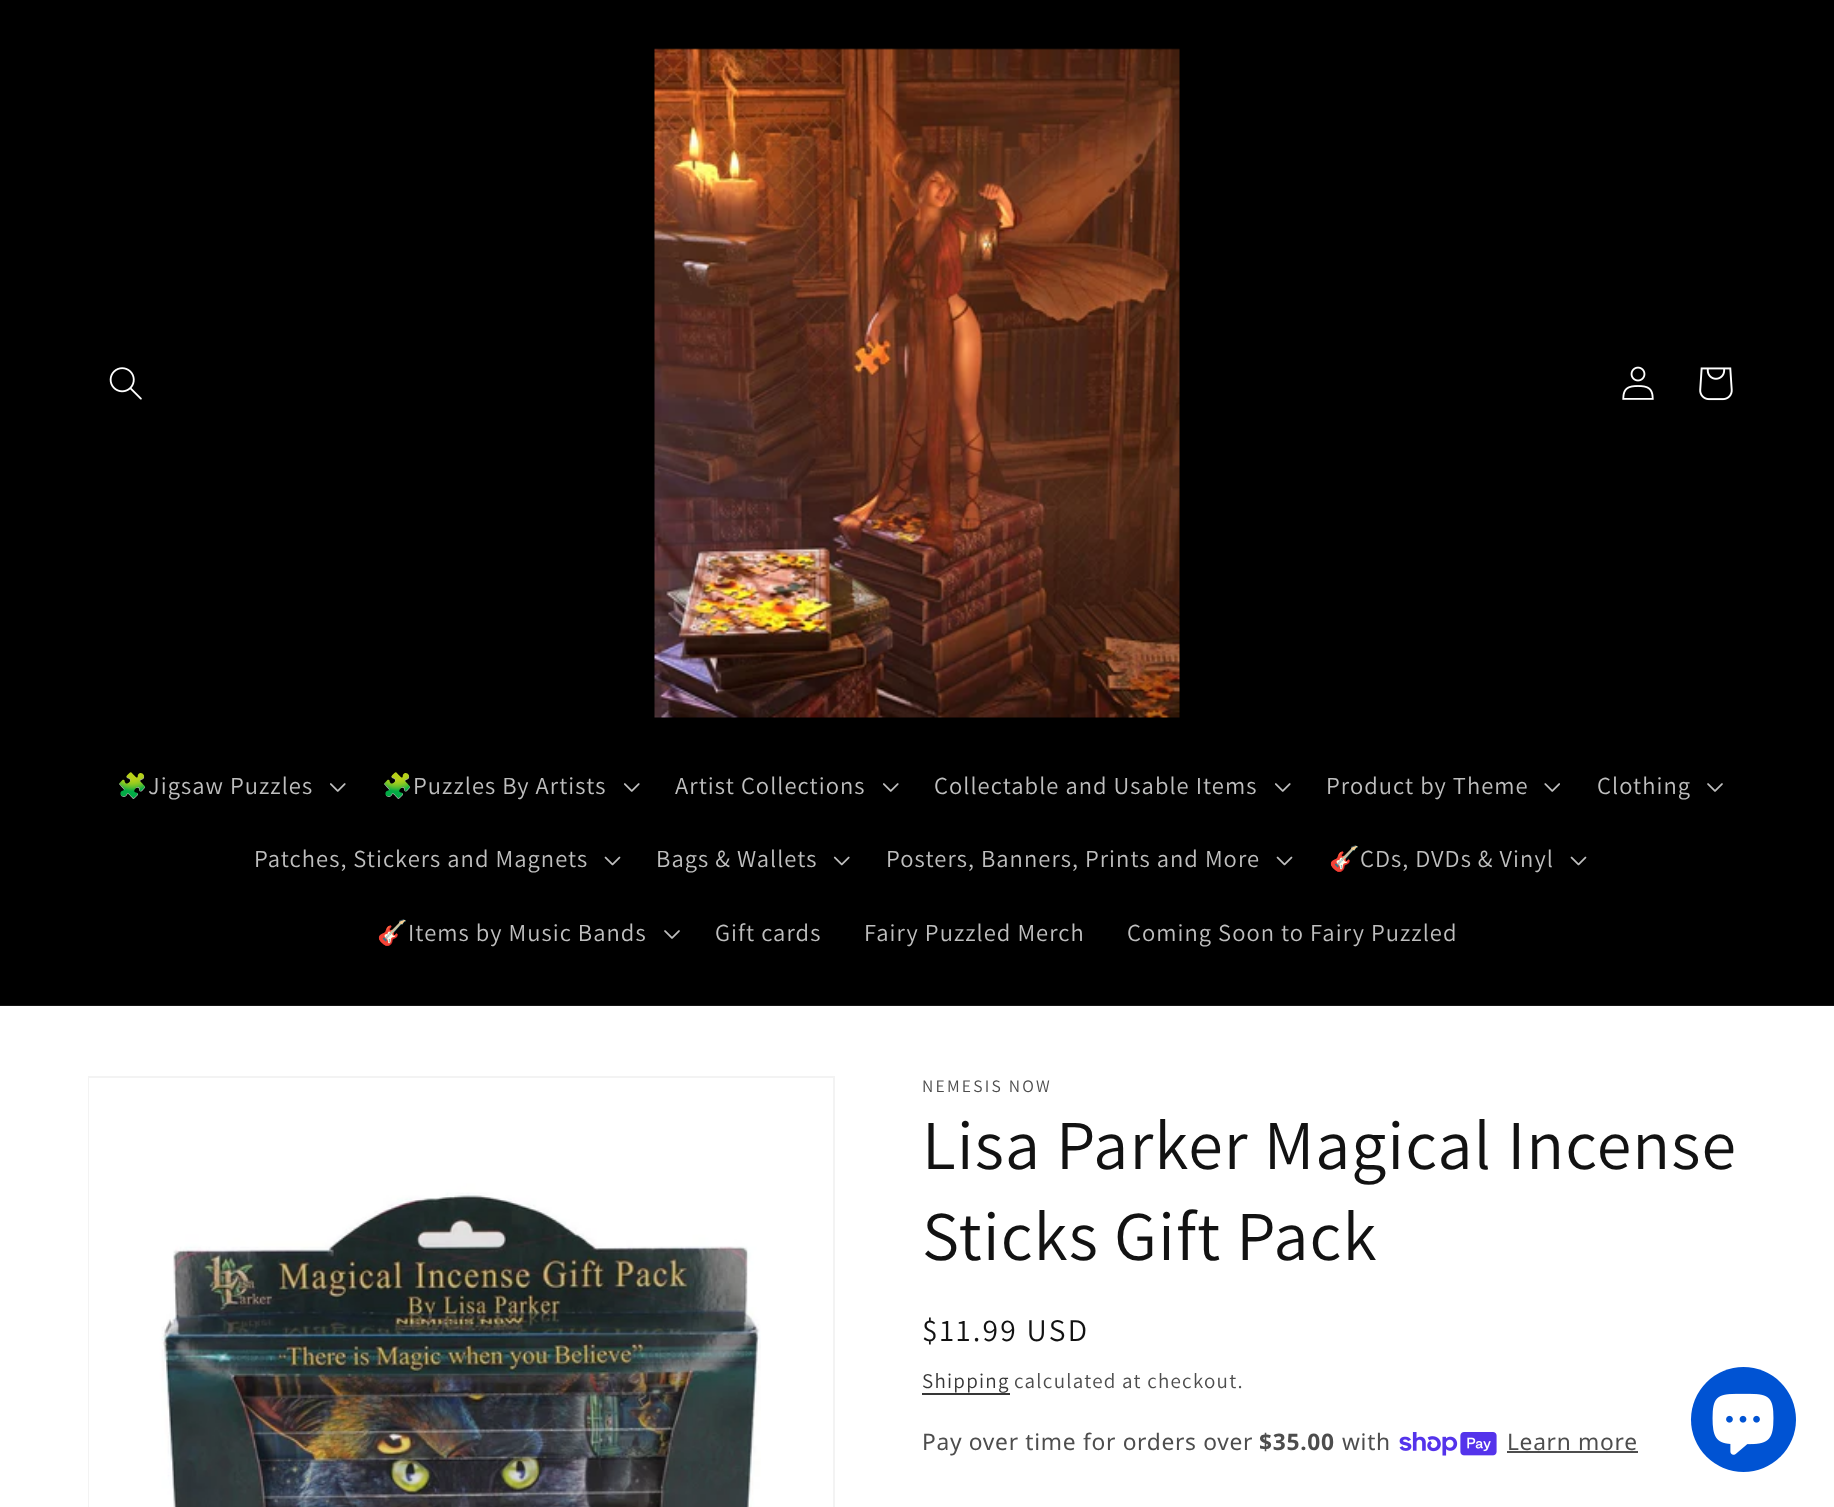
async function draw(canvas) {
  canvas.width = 1834;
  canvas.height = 1507;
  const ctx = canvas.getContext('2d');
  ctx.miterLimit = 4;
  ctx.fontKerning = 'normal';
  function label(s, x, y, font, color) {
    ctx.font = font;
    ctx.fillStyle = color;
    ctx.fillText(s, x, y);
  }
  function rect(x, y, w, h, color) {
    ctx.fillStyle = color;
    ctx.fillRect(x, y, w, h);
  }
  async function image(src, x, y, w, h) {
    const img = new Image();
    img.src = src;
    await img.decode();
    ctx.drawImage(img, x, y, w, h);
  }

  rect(0, 0, 1834, 1507, '#fff');
  rect(0, 0, 1834, 1005, '#000');
  rect(0, 1005, 1834, 1, '#141414');
  await image('assets/img1.png', 109, 367, 33, 33);
  await image('assets/img2.png', 654, 48, 526, 670);
  await image('assets/img3.png', 1622, 366, 32, 34);
  await image('assets/img4.png', 1699, 367, 34, 34);
  ctx.letterSpacing = '1.05px';
  label('🧩', 117, 794, '24.5px Noto Color Emoji', '#bfbfbf');
  label('Jigsaw Puzzles', 148, 794, '24.5px Assistant', '#bfbfbf');
  await image('assets/img5.png', 330, 783, 16, 9);
  label('🧩', 382, 794, '24.5px Noto Color Emoji', '#bfbfbf');
  label('Puzzles By Artists', 413, 794, '24.5px Assistant', '#bfbfbf');
  await image('assets/img5.png', 624, 783, 16, 9);
  label('Artist Collections', 675, 794, '24.5px Assistant', '#bfbfbf');
  await image('assets/img5.png', 883, 783, 16, 9);
  label('Collectable and Usable Items', 934, 794, '24.5px Assistant', '#bfbfbf');
  await image('assets/img5.png', 1275, 783, 16, 9);
  label('Product by Theme', 1326, 794, '24.5px Assistant', '#bfbfbf');
  await image('assets/img6.png', 1544, 783, 16, 9);
  label('Clothing', 1597, 794, '24.5px Assistant', '#bfbfbf');
  await image('assets/img7.png', 1707, 783, 16, 9);
  label('Patches, Stickers and Magnets', 254, 867, '24.5px Assistant', '#bfbfbf');
  await image('assets/img8.png', 604, 856, 17, 10);
  label('Bags & Wallets', 656, 867, '24.5px Assistant', '#bfbfbf');
  await image('assets/img9.png', 833, 856, 17, 10);
  label('Posters, Banners, Prints and More', 886, 867, '24.5px Assistant', '#bfbfbf');
  await image('assets/img8.png', 1276, 856, 17, 10);
  label('🎸', 1329, 867, '24.5px Noto Color Emoji', '#bfbfbf');
  label('CDs, DVDs & Vinyl', 1360, 867, '24.5px Assistant', '#bfbfbf');
  await image('assets/img8.png', 1570, 856, 17, 10);
  label('🎸', 377, 941, '24.5px Noto Color Emoji', '#bfbfbf');
  label('Items by Music Bands', 408, 941, '24.5px Assistant', '#bfbfbf');
  await image('assets/img7.png', 664, 930, 16, 9);
  label('Gift cards', 715, 941, '24.5px Assistant', '#bfbfbf');
  label('Fairy Puzzled Merch', 864, 941, '24.5px Assistant', '#bfbfbf');
  label('Coming Soon to Fairy Puzzled', 1127, 941, '24.5px Assistant', '#bfbfbf');
  ctx.strokeStyle = '#f3f3f3';
  ctx.lineWidth = 2;
  ctx.strokeRect(89, 1077, 745, 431);
  await image('assets/img10.png', 89, 1078, 672, 429);
  ctx.letterSpacing = '2.25px';
  label('NEMESIS NOW', 922, 1092, '17.5px Assistant', '#4d4d4d');
  ctx.letterSpacing = '1.05px';
  label('Lisa Parker Magical Incense', 922, 1169, '70px Assistant', '#121212');
  label('Sticks Gift Pack', 922, 1260, '70px Assistant', '#121212');
  ctx.letterSpacing = '2.25px';
  label('$11.99 USD', 922, 1341, '31.5px Assistant', '#121212');
  ctx.letterSpacing = '1.25px';
  label('Shipping', 922, 1388, '21px Assistant', '#363636');
  rect(922, 1393, 88, 2, '#363636');
  label('calculated at checkout.', 1014, 1388, '21px Assistant', '#4d4d4d');
  ctx.letterSpacing = '0.7px';
  label('Pay over time for orders over', 922, 1450, '22.75px Noto Sans', '#4d4d4d');
  label('$35.00', 1259, 1450, 'bold 22.75px Noto Sans', '#4d4d4d');
  label('with', 1342, 1450, '22.75px Noto Sans', '#4d4d4d');
  await image('assets/img11.png', 1399, 1432, 98, 24);
  label('Learn more', 1507, 1450, '22.75px Noto Sans', '#4d4d4d');
  rect(1507, 1451, 131, 2, '#4d4d4d');
  ctx.fillStyle = '#0053d3';
  ctx.beginPath();
  ctx.arc(1743.5, 1419.5, 52.5, 0, 2 * Math.PI);
  ctx.fill();
  await image('assets/img12.png', 1712, 1393, 62, 62);
}

draw(document.querySelector('canvas'));
